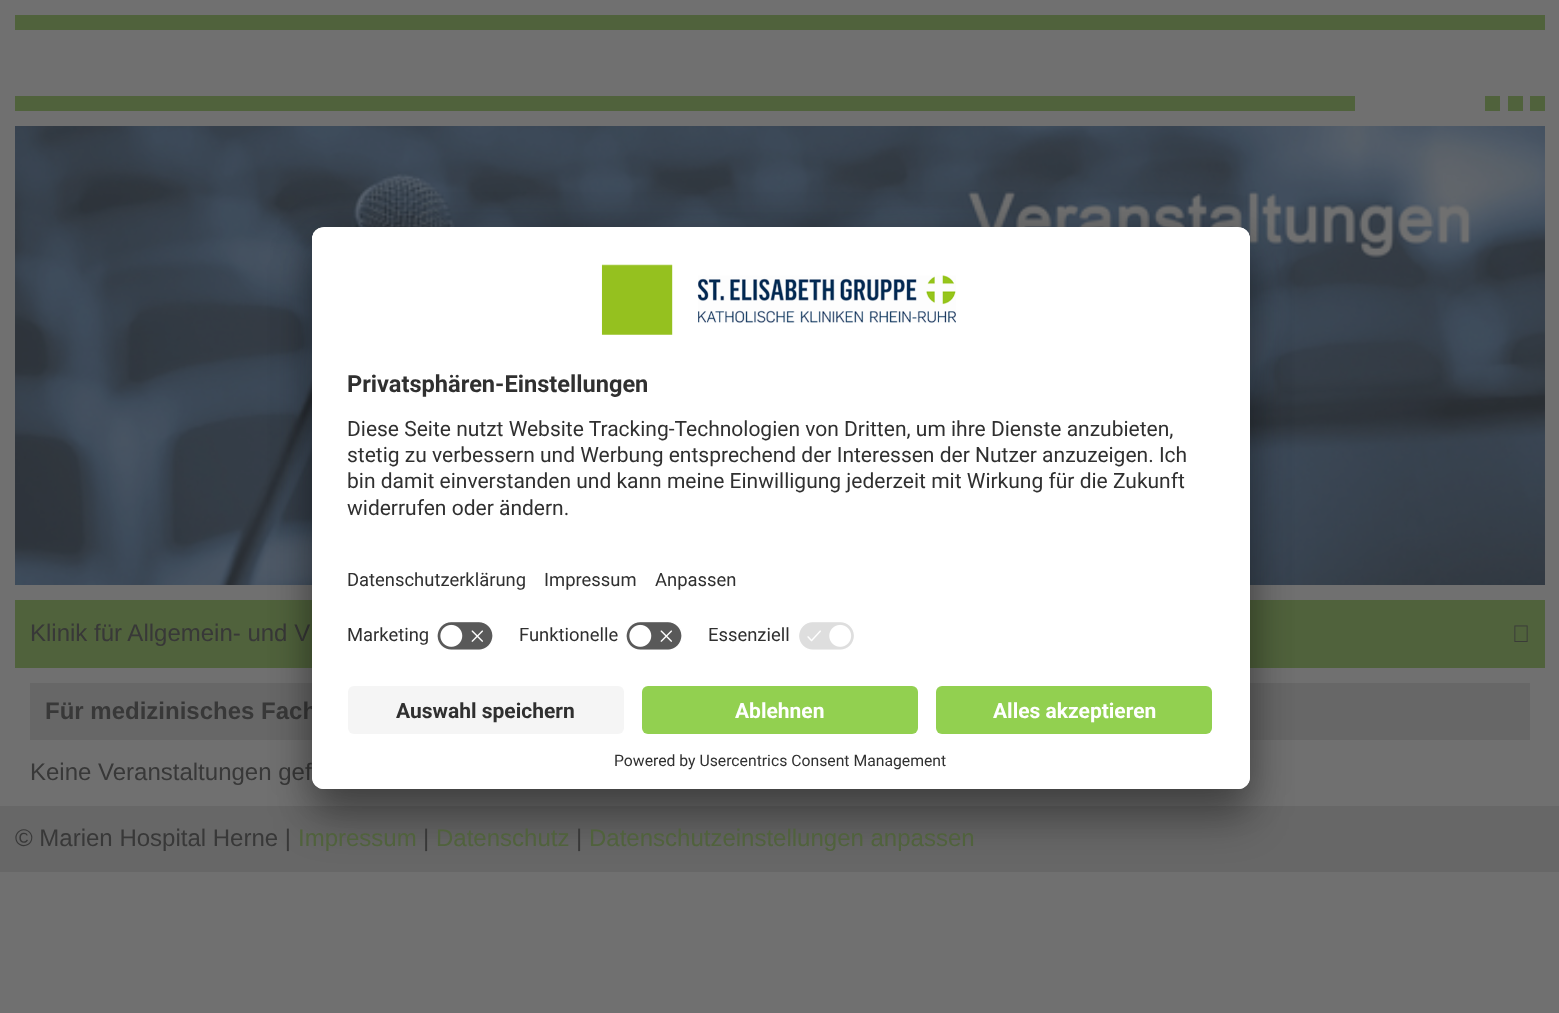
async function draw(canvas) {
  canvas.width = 1559;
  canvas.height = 1013;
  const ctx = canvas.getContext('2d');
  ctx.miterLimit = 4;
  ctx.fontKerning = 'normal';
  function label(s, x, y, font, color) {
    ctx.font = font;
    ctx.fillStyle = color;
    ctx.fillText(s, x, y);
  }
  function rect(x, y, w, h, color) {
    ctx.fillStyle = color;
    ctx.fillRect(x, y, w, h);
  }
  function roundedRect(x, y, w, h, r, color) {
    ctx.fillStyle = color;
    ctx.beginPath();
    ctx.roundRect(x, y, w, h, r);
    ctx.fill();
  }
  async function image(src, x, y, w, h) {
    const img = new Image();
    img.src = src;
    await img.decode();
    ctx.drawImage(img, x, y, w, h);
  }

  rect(0, 0, 1559, 1013, '#707070');
  rect(15, 15, 1530, 15, '#50623c');
  rect(15, 96, 1340, 15, '#50623c');
  rect(1485, 96, 15, 15, '#50623c');
  rect(1508, 96, 15, 15, '#50623c');
  rect(1530, 96, 15, 15, '#50623c');
  await image('assets/img1.png', 15, 126, 1530, 459);
  rect(15, 600, 1530, 68, '#50623c');
  label('Klinik für Allgemein- und V', 30, 641, '24px Liberation Sans', '#383838');
  await image('assets/img2.png', 1514, 625, 14, 17);
  rect(30, 683, 1500, 57, '#676767');
  label('Für medizinisches Fach', 45, 719, 'bold 24px Liberation Sans', '#383838');
  label('Keine Veranstaltungen gef', 30, 780, '24px Liberation Sans', '#383838');
  rect(0, 806, 1559, 66, '#676767');
  ctx.fillStyle = '#0000004d';
  ctx.filter = 'blur(21px)';
  ctx.beginPath();
  ctx.roundRect(312, 257, 938, 562, 12);
  ctx.fill();
  ctx.filter = 'none';
  ctx.fillStyle = '#00000038';
  ctx.filter = 'blur(19.5px)';
  ctx.beginPath();
  ctx.roundRect(312, 234, 938, 563, 12);
  ctx.fill();
  ctx.filter = 'none';
  roundedRect(312, 227, 938, 562, 12, '#fff');
  ctx.save();
  ctx.beginPath();
  ctx.roundRect(312, 227, 938, 562, 12);
  ctx.clip();
  ctx.beginPath();
  ctx.roundRect(312, 227, 938, 447, [12, 12, 0, 0]);
  ctx.clip();
  rect(312, 228, 938, 446, '#fff');
  rect(312, 228, 938, 386, '#fff');
  ctx.restore();
  await image('assets/img3.png', 601, 264, 355, 71);
  label('Privatsphären-Einstellungen', 347, 392, 'bold 23.6px Roboto', '#303030');
  label('Diese Seite nutzt Website Tracking-Technologien von Dritten, um ihre Dienste anzubieten,', 347, 436, '21px Roboto', '#303030');
  label('stetig zu verbessern und Werbung entsprechend der Interessen der Nutzer anzuzeigen. Ich', 347, 462, '21px Roboto', '#303030');
  label('bin damit einverstanden und kann meine Einwilligung jederzeit mit Wirkung für die Zukunft', 347, 488, '21px Roboto', '#303030');
  label('widerrufen oder ändern.', 347, 515, '21px Roboto', '#303030');
  label('Datenschutzerklärung', 347, 586, '18.4px Roboto', '#303030');
  label('Impressum', 544, 586, '18.4px Roboto', '#303030');
  label('Anpassen', 655, 586, '18.4px Roboto', '#303030');
  label('Marketing', 347, 641, '18.4px Roboto', '#303030');
  await image('assets/img4.png', 437, 622, 56, 28);
  label('Funktionelle', 519, 641, '18.4px Roboto', '#303030');
  await image('assets/img4.png', 626, 622, 56, 28);
  label('Essenziell', 708, 641, '18.4px Roboto', '#303030');
  await image('assets/img5.png', 799, 622, 55, 28);
  ctx.fillStyle = '#fff';
  ctx.beginPath();
  ctx.roundRect(312, 674, 938, 115, [0, 0, 12, 12]);
  ctx.fill();
  roundedRect(348, 686, 276, 48, 6, '#f5f5f5');
  label('Auswahl speichern', 396, 718, 'bold 21px Roboto', '#303030');
  roundedRect(642, 686, 276, 48, 6, '#92d050');
  label('Ablehnen', 735, 718, 'bold 21px Roboto', '#fff');
  roundedRect(936, 686, 276, 48, 6, '#92d050');
  label('Alles akzeptieren', 993, 718, 'bold 21px Roboto', '#fff');
  label('Powered by Usercentrics Consent Management', 614, 766, '15.75px Roboto', '#303030');
  label('© Marien Hospital Herne |', 15, 846, '24px Liberation Sans', '#383838');
  label('Impressum', 298, 846, '24px Liberation Sans', '#50623c');
  label('|', 423, 846, '24px Liberation Sans', '#383838');
  label('Datenschutz', 436, 846, '24px Liberation Sans', '#50623c');
  label('|', 576, 846, '24px Liberation Sans', '#383838');
  label('Datenschutzeinstellungen anpassen', 589, 846, '24px Liberation Sans', '#50623c');
}

draw(document.querySelector('canvas'));
